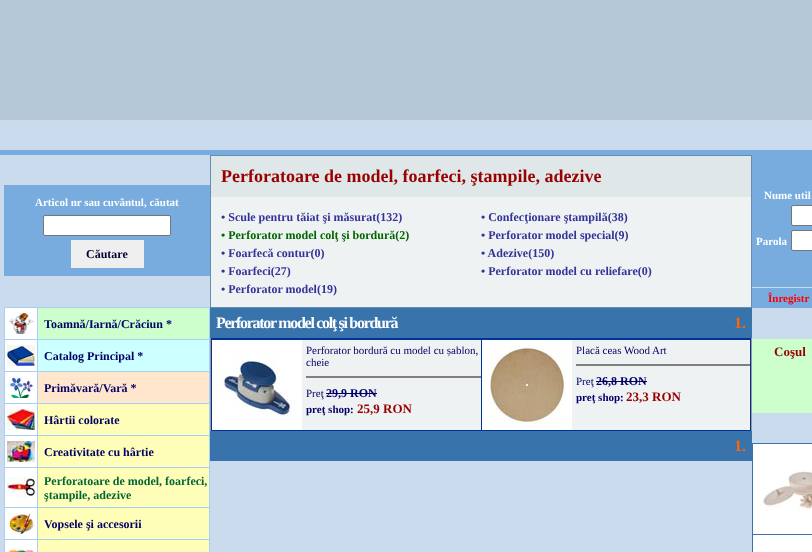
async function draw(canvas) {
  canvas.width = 812;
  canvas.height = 552;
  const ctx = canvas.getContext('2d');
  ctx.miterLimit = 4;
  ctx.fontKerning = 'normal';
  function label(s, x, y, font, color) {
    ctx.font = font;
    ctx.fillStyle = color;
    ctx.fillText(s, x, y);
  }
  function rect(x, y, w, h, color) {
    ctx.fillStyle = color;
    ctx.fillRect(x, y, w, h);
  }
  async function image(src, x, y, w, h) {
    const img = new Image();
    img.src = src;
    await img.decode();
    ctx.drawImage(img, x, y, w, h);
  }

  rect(0, 0, 812, 552, '#c9dbed');
  rect(0, 0, 812, 120, '#b5c8d7');
  rect(0, 150, 812, 5, '#78acdf');
  rect(4, 185, 206, 91, '#78acdf');
  label('Articol nr sau cuvântul, căutat', 35, 206, 'bold 11px Liberation Serif', '#fff');
  ctx.beginPath();
  ctx.roundRect(43.5, 215.5, 127, 20, 1.5);
  ctx.fill();
  ctx.strokeStyle = '#767676';
  ctx.stroke();
  rect(71, 240, 73, 28, '#efefef');
  label('Căutare', 86, 258, 'bold 12px Liberation Serif', '#003');
  rect(4, 307, 206, 245, '#a9cff5');
  rect(5, 308, 32, 31, '#fff');
  await image('assets/img1.png', 9, 313, 26, 21);
  rect(38, 308, 171, 31, '#cfc');
  label('Toamnă/Iarnă/Crăciun *', 44, 328, 'bold 12px Liberation Serif', '#006');
  rect(5, 340, 32, 31, '#fff');
  await image('assets/img2.png', 7, 345, 28, 21);
  rect(38, 340, 171, 31, '#cff');
  label('Catalog Principal *', 44, 360, 'bold 12px Liberation Serif', '#006');
  rect(5, 372, 32, 31, '#fff');
  await image('assets/img3.png', 7, 377, 28, 21);
  rect(38, 372, 171, 31, '#ffe6cc');
  label('Primăvară/Vară *', 44, 392, 'bold 12px Liberation Serif', '#006');
  rect(5, 404, 32, 31, '#fff');
  await image('assets/img4.png', 7, 409, 28, 21);
  rect(38, 404, 171, 31, '#fffeb8');
  label('Hârtii colorate', 44, 424, 'bold 12px Liberation Serif', '#006');
  rect(5, 436, 32, 31, '#fff');
  await image('assets/img5.png', 7, 441, 28, 21);
  rect(38, 436, 171, 31, '#fffeb8');
  label('Creativitate cu hârtie', 44, 456, 'bold 12px Liberation Serif', '#006');
  rect(5, 468, 32, 39, '#fff');
  await image('assets/img6.png', 7, 477, 28, 21);
  rect(38, 468, 171, 39, '#fffeb8');
  label('Perforatoare de model, foarfeci,', 44, 485, 'bold 12px Liberation Serif', '#063');
  label('ştampile, adezive', 44, 499, 'bold 12px Liberation Serif', '#063');
  rect(5, 508, 32, 31, '#fff');
  await image('assets/img7.png', 7, 513, 28, 21);
  rect(38, 508, 171, 31, '#fffeb8');
  label('Vopsele şi accesorii', 44, 528, 'bold 12px Liberation Serif', '#006');
  rect(5, 540, 32, 12, '#fff');
  await image('assets/img8.png', 7, 549, 28, 3);
  rect(38, 540, 171, 12, '#fffeb8');
  rect(210, 155, 542, 153, '#678db2');
  rect(211, 197, 540, 110, '#eff2f3');
  rect(211, 156, 540, 41, '#e0e7e9');
  label('Perforatoare de model, foarfeci, ştampile, adezive', 221, 182, 'bold 18px Liberation Serif', '#900');
  label('• Scule pentru tăiat şi măsurat(132)', 221, 221, 'bold 12px Liberation Serif', '#339');
  label('• Confecţionare ştampilă(38)', 481, 221, 'bold 12px Liberation Serif', '#339');
  label('• Perforator model colţ şi bordură(2)', 221, 239, 'bold 12px Liberation Serif', '#060');
  label('• Perforator model special(9)', 481, 239, 'bold 12px Liberation Serif', '#339');
  label('• Foarfecă contur(0)', 221, 257, 'bold 12px Liberation Serif', '#339');
  label('• Adezive(150)', 481, 257, 'bold 12px Liberation Serif', '#339');
  label('• Foarfeci(27)', 221, 275, 'bold 12px Liberation Serif', '#339');
  label('• Perforator model cu reliefare(0)', 481, 275, 'bold 12px Liberation Serif', '#339');
  label('• Perforator model(19)', 221, 293, 'bold 12px Liberation Serif', '#339');
  rect(210, 308, 542, 30, '#3873ab');
  ctx.letterSpacing = '-1.3px';
  label('Perforator model colţ şi bordură', 216, 328, 'bold 16px Liberation Serif', '#fff');
  ctx.letterSpacing = '0px';
  label('1.', 734, 328, 'bold 16px Liberation Serif', '#f60');
  rect(211, 338, 540, 93, '#039');
  rect(751, 338, 1, 93, '#999');
  rect(210, 338, 1, 93, '#999');
  rect(302, 340, 179, 90, '#eff2f3');
  rect(212, 340, 90, 90, '#fff');
  await image('assets/img9.png', 217, 352, 80, 64);
  label('Perforator bordură cu model cu șablon,', 306, 354, '11px Liberation Serif', '#006');
  label('cheie', 306, 366, '11px Liberation Serif', '#006');
  rect(307, 377, 173, 1, '#808080');
  rect(306, 376, 175, 1, '#808080');
  rect(480, 376, 1, 2, '#808080');
  rect(306, 376, 1, 2, '#808080');
  label('Preţ', 306, 397, '11px Liberation Serif', '#006');
  label('29,9 RON', 326, 397, 'bold 12px Liberation Serif', '#006');
  rect(326, 393, 51, 1, '#006');
  label('preţ shop:', 306, 413, 'bold 11px Liberation Serif', '#006');
  label('25,9 RON', 357, 413, 'bold 13px Liberation Serif', '#900');
  rect(572, 340, 178, 90, '#eff2f3');
  rect(482, 340, 90, 90, '#fff');
  await image('assets/img10.png', 488, 345, 78, 80);
  label('Placă ceas Wood', 576, 354, '11px Liberation Serif', '#006');
  label('Art', 652, 354, '11px Liberation Serif', '#006');
  rect(577, 365, 172, 1, '#808080');
  rect(576, 364, 174, 1, '#808080');
  rect(749, 364, 1, 2, '#808080');
  rect(576, 364, 1, 2, '#808080');
  label('Preţ', 576, 385, '11px Liberation Serif', '#006');
  label('26,8 RON', 596, 385, 'bold 12px Liberation Serif', '#006');
  rect(596, 381, 51, 1, '#006');
  label('preţ shop:', 576, 401, 'bold 11px Liberation Serif', '#006');
  label('23,3 RON', 626, 401, 'bold 13px Liberation Serif', '#900');
  rect(210, 431, 542, 30, '#3873ab');
  label('1.', 734, 451, 'bold 16px Liberation Serif', '#f60');
  rect(752, 155, 60, 153, '#78acdf');
  label('Nume util', 764, 199, 'bold 11px Liberation Serif', '#fff');
  ctx.beginPath();
  ctx.roundRect(791.5, 205.5, 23, 20, 1.5);
  ctx.fill();
  ctx.stroke();
  label('Parola', 756, 245, 'bold 11px Liberation Serif', '#fff');
  ctx.beginPath();
  ctx.roundRect(791.5, 230.5, 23, 20, 1.5);
  ctx.fill();
  ctx.stroke();
  rect(752, 287, 60, 1, '#c9dbed');
  label('Înregistr', 768, 302, 'bold 11px Liberation Serif', '#f00');
  rect(752, 339, 60, 74, '#cfc');
  label('Coşul', 774, 356, 'bold 13px Liberation Serif', '#900');
  rect(752, 443, 60, 109, '#3873ab');
  rect(753, 444, 59, 90, '#fff');
  await image('assets/img11.png', 760, 470, 52, 40);
  rect(753, 535, 59, 17, '#fff');
}

draw(document.querySelector('canvas'));
